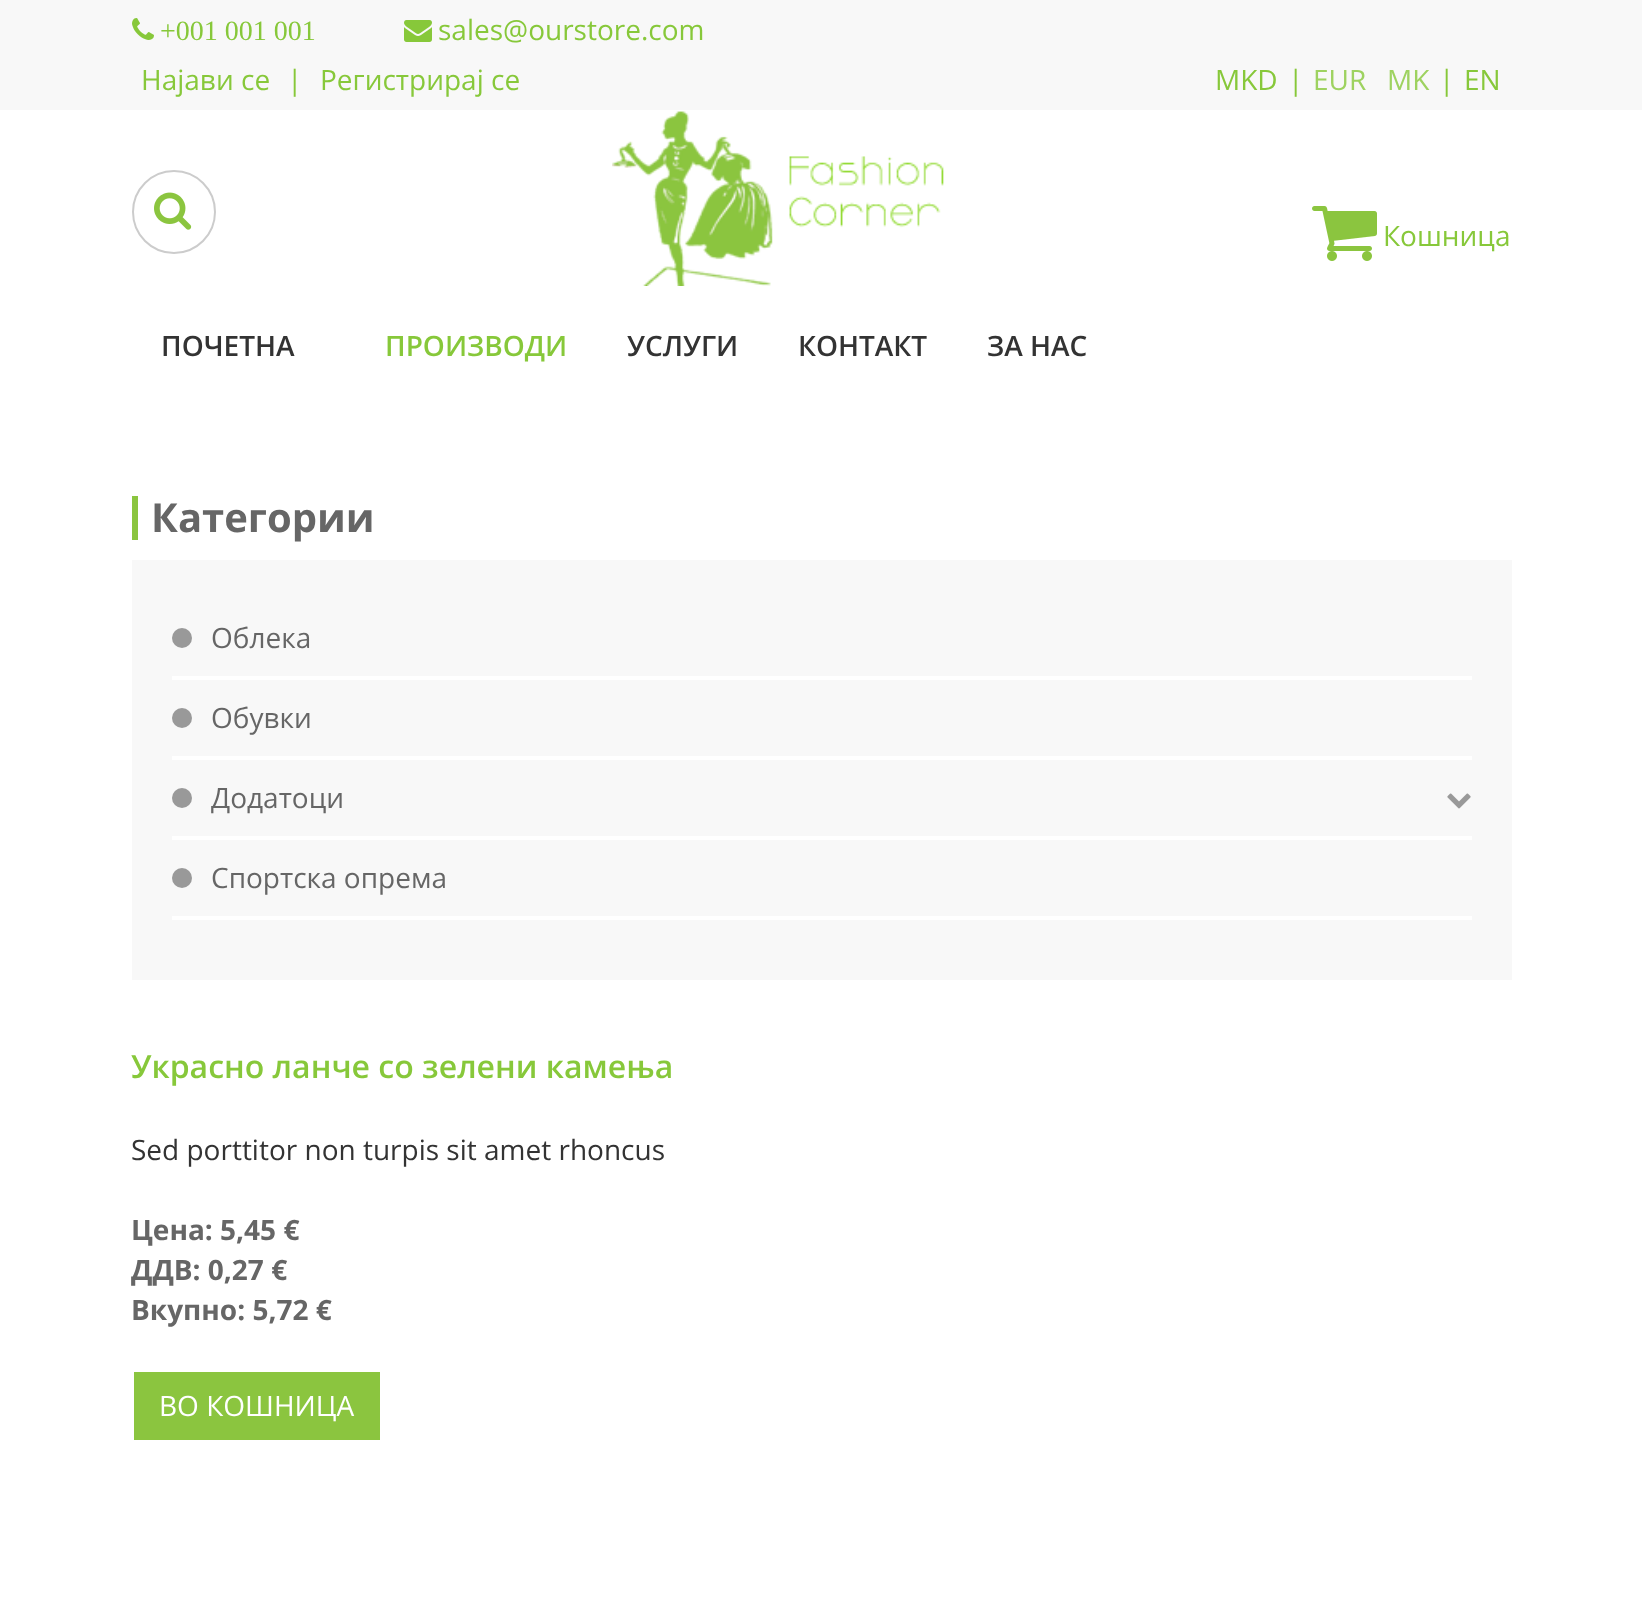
async function draw(canvas) {
  canvas.width = 1642;
  canvas.height = 1620;
  const ctx = canvas.getContext('2d');
  ctx.miterLimit = 4;
  ctx.fontKerning = 'normal';
  function label(s, x, y, font, color) {
    ctx.font = font;
    ctx.fillStyle = color;
    ctx.fillText(s, x, y);
  }
  function rect(x, y, w, h, color) {
    ctx.fillStyle = color;
    ctx.fillRect(x, y, w, h);
  }
  async function image(src, x, y, w, h) {
    const img = new Image();
    img.src = src;
    await img.decode();
    ctx.drawImage(img, x, y, w, h);
  }

  rect(0, 0, 1642, 1620, '#fff');
  rect(0, 0, 1642, 110, '#f8f8f8');
  await image('assets/img1.png', 132, 18, 22, 22);
  label('+001 001 001', 160, 40, '28px Liberation Serif', '#87c83a');
  await image('assets/img2.png', 404, 20, 28, 22);
  label('sales@ourstore.com', 438, 40, '28px Open Sans', '#87c83a');
  label('Најави се', 141, 90, '28px Open Sans', '#87c83a');
  label('|', 287, 90, '28px Open Sans', '#87c83a');
  label('Регистрирај се', 320, 90, '28px Open Sans', '#87c83a');
  label('MKD', 1215, 90, '28px Open Sans', '#87c83a');
  label('|', 1288, 90, '28px Open Sans', '#87c83a');
  label('EUR', 1313, 90, '28px Open Sans', '#9ed260');
  label('MK', 1387, 90, '28px Open Sans', '#9ed260');
  label('|', 1439, 90, '28px Open Sans', '#87c83a');
  label('EN', 1464, 90, '28px Open Sans', '#87c83a');
  await image('assets/img3.png', 154, 192, 38, 38);
  ctx.beginPath();
  ctx.arc(174, 212, 41, 0, 2 * Math.PI);
  ctx.strokeStyle = '#ccc';
  ctx.lineWidth = 2;
  ctx.stroke();
  await image('assets/img4.png', 612, 111, 332, 175);
  await image('assets/img5.png', 1312, 206, 65, 55);
  label('Кошница', 1383, 246, '28px Open Sans', '#87c83a');
  label('ПОЧЕТНА', 161, 356, '600 28px Open Sans', '#333');
  label('ПРОИЗВОДИ', 385, 356, '600 28px Open Sans', '#87c83a');
  label('УСЛУГИ', 627, 356, '600 28px Open Sans', '#333');
  label('КОНТАКТ', 798, 356, '600 28px Open Sans', '#333');
  label('ЗА НАС', 987, 356, '600 28px Open Sans', '#333');
  rect(132, 496, 6, 44, '#8bc53f');
  label('Категории', 151, 532, 'bold 40px Open Sans', '#666');
  rect(132, 560, 1380, 420, '#f8f8f8');
  rect(172, 676, 1300, 4, '#fff');
  ctx.fillStyle = '#999';
  ctx.beginPath();
  ctx.arc(182, 638, 10, 0, 2 * Math.PI);
  ctx.fill();
  label('Облека', 211, 648, '28px Open Sans', '#666');
  rect(172, 756, 1300, 4, '#fff');
  ctx.fillStyle = '#999';
  ctx.beginPath();
  ctx.arc(182, 718, 10, 0, 2 * Math.PI);
  ctx.fill();
  label('Обувки', 211, 728, '28px Open Sans', '#666');
  rect(172, 836, 1300, 4, '#fff');
  ctx.fillStyle = '#999';
  ctx.beginPath();
  ctx.arc(182, 798, 10, 0, 2 * Math.PI);
  ctx.fill();
  label('Додатоци', 211, 808, '28px Open Sans', '#666');
  await image('assets/img6.png', 1447, 793, 24, 16);
  rect(172, 916, 1300, 4, '#fff');
  ctx.fillStyle = '#999';
  ctx.beginPath();
  ctx.arc(182, 878, 10, 0, 2 * Math.PI);
  ctx.fill();
  label('Спортска опрема', 211, 888, '28px Open Sans', '#666');
  label('Украсно ланче со зелени камења', 131, 1078, '600 32px Open Sans', '#87c83a');
  label('Sed porttitor non turpis sit amet rhoncus', 131, 1160, '28px Open Sans', '#333');
  label('Цена: 5,45 €', 131, 1240, 'bold 28px Open Sans', '#666');
  label('ДДВ: 0,27 €', 131, 1280, 'bold 28px Open Sans', '#666');
  label('Вкупно: 5,72 €', 131, 1320, 'bold 28px Open Sans', '#666');
  rect(134, 1372, 246, 68, '#8bc53f');
  label('ВО КОШНИЦА', 159, 1416, '28px Open Sans', '#fff');
}

draw(document.querySelector('canvas'));
